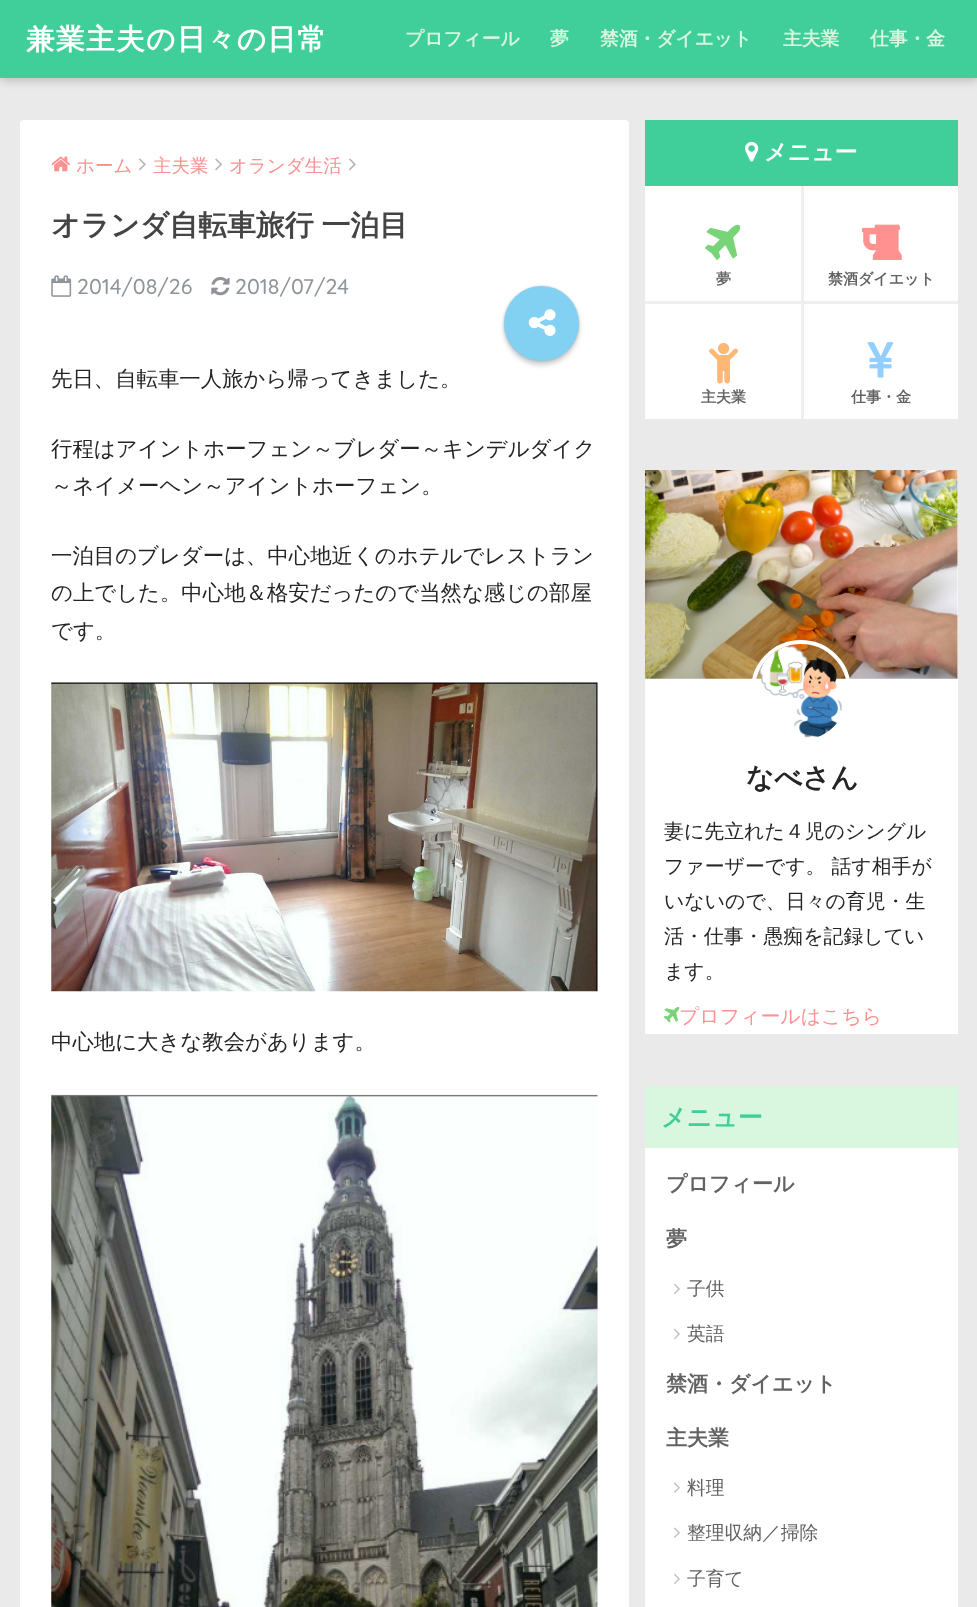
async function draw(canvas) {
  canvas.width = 977;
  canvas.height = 1607;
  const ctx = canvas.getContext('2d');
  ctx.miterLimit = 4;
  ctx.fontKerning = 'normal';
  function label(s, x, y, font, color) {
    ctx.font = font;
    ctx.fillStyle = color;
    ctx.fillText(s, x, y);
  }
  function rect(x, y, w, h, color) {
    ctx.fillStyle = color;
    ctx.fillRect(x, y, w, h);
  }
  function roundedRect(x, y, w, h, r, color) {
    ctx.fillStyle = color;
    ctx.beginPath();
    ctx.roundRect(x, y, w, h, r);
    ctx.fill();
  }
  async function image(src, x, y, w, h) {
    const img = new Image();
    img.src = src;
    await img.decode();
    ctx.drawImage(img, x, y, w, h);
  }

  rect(0, 0, 977, 1607, '#eaeaea');
  ctx.fillStyle = '#0000002e';
  ctx.filter = 'blur(4px)';
  ctx.beginPath();
  ctx.rect(0, 4, 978, 77);
  ctx.fill();
  ctx.filter = 'none';
  rect(0, 0, 977, 78, '#40ce9a');
  ctx.letterSpacing = '1.25px';
  label('兼業主夫の日々の日常', 26, 49, 'bold 28.75px WenQuanYi Zen Hei', '#fff');
  ctx.letterSpacing = '0px';
  label('プロフィール', 405, 45, 'bold 18.75px WenQuanYi Zen Hei', '#d9f7de');
  label('夢', 550, 45, 'bold 18.75px WenQuanYi Zen Hei', '#d9f7de');
  label('禁酒・ダイエット', 600, 45, 'bold 18.75px WenQuanYi Zen Hei', '#d9f7de');
  label('主夫業', 783, 45, 'bold 18.75px WenQuanYi Zen Hei', '#d9f7de');
  label('仕事・金', 870, 45, 'bold 18.75px WenQuanYi Zen Hei', '#d9f7de');
  roundedRect(20, 120, 609, 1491, 4, '#fff');
  await image('assets/img1.png', 51, 156, 19, 16);
  label('ホーム', 76, 172, '500 18.5px WenQuanYi Zen Hei', '#ff9090');
  await image('assets/img2.png', 139, 158, 7, 13);
  label('主夫業', 153, 172, '500 18.5px WenQuanYi Zen Hei', '#ff9090');
  await image('assets/img3.png', 215, 158, 7, 13);
  label('オランダ生活', 229, 172, '500 18.5px WenQuanYi Zen Hei', '#ff9090');
  await image('assets/img2.png', 349, 158, 7, 13);
  ctx.wordSpacing = '-1px';
  label('オランダ自転車旅行 一泊目', 51, 235, 'bold 28.9px WenQuanYi Zen Hei', '#444');
  await image('assets/img4.png', 51, 275, 21, 22);
  ctx.wordSpacing = '0px';
  label('2014/08/26', 77, 294, '500 21.4px Quicksand', '#8e949a');
  await image('assets/img5.png', 211, 276, 19, 20);
  label('2018/07/24', 235, 294, '500 21.4px Quicksand', '#8e949a');
  ctx.fillStyle = '#00000033';
  ctx.filter = 'blur(1px)';
  ctx.beginPath();
  ctx.roundRect(504, 286, 75, 75, 37.5);
  ctx.fill();
  ctx.filter = 'none';
  ctx.filter = 'blur(2.5px)';
  ctx.beginPath();
  ctx.roundRect(504, 290, 75, 75, 37.5);
  ctx.fill();
  ctx.filter = 'none';
  ctx.fillStyle = '#82d1f2';
  ctx.beginPath();
  ctx.arc(541.5, 323.5, 37.5, 0, 2 * Math.PI);
  ctx.fill();
  await image('assets/img6.png', 528, 309, 28, 27);
  label('先日、自転車一人旅から帰ってきました。', 51, 386, '500 21.4px WenQuanYi Zen Hei', '#252525');
  label('行程はアイントホーフェン～ブレダー～キンデルダイク', 51, 456, '500 21.4px WenQuanYi Zen Hei', '#252525');
  label('～ネイメーヘン～アイントホーフェン。', 51, 493, '500 21.4px WenQuanYi Zen Hei', '#252525');
  label('一泊目のブレダーは、中心地近くのホテルでレストラン', 51, 563, '500 21.4px WenQuanYi Zen Hei', '#252525');
  label('の上でした。中心地＆格安だったので当然な感じの部屋', 51, 600, '500 21.4px WenQuanYi Zen Hei', '#252525');
  label('です。', 51, 638, '500 21.4px WenQuanYi Zen Hei', '#252525');
  await image('assets/img7.png', 51, 682, 547, 310);
  label('中心地に大きな教会があります。', 51, 1049, '500 21.4px WenQuanYi Zen Hei', '#252525');
  await image('assets/img8.png', 51, 1094, 547, 513);
  rect(645, 186, 313, 233, '#fff');
  rect(645, 120, 313, 66, '#40ce9a');
  await image('assets/img9.png', 745, 141, 14, 21);
  label('メニュー', 764, 160, 'bold 23px WenQuanYi Zen Hei', '#fff');
  rect(645, 301, 313, 3, '#efefef');
  await image('assets/img10.png', 705, 224, 36, 36);
  label('夢', 716, 284, 'bold 15px WenQuanYi Zen Hei', '#626262');
  rect(801, 186, 3, 233, '#efefef');
  await image('assets/img11.png', 861, 224, 41, 36);
  label('禁酒ダイエット', 828, 284, 'bold 15px WenQuanYi Zen Hei', '#626262');
  await image('assets/img12.png', 709, 342, 29, 42);
  label('主夫業', 701, 402, 'bold 15px WenQuanYi Zen Hei', '#626262');
  await image('assets/img13.png', 867, 342, 27, 36);
  label('仕事・金', 851, 402, 'bold 15px WenQuanYi Zen Hei', '#626262');
  rect(645, 470, 313, 564, '#fff');
  await image('assets/img14.png', 645, 470, 313, 209);
  ctx.beginPath();
  ctx.roundRect(753, 642, 96, 100, 48);
  ctx.strokeStyle = '#fff';
  ctx.lineWidth = 4;
  ctx.stroke();
  await image('assets/img15.png', 759, 645, 83, 93);
  label('なべさん', 746, 787, 'bold 27.5px WenQuanYi Zen Hei', '#252525');
  label('妻に先立れた４児のシングル', 664, 838, '500 19.9px WenQuanYi Zen Hei', '#252525');
  label('ファーザーです。 話す相手が', 664, 873, '500 19.9px WenQuanYi Zen Hei', '#252525');
  label('いないので、日々の育児・生', 664, 908, '500 19.9px WenQuanYi Zen Hei', '#252525');
  label('活・仕事・愚痴を記録してい', 664, 943, '500 19.9px WenQuanYi Zen Hei', '#252525');
  label('ます。', 664, 978, '500 19.9px WenQuanYi Zen Hei', '#252525');
  await image('assets/img16.png', 663, 1007, 17, 16);
  label('プロフィールはこちら', 679, 1023, '500 19.9px WenQuanYi Zen Hei', '#ff9090');
  rect(645, 1148, 313, 459, '#fff');
  rect(645, 1086, 313, 62, '#d9f7de');
  label('メニュー', 661, 1126, 'bold 25px WenQuanYi Zen Hei', '#40ce9a');
  label('プロフィール', 666, 1191, 'bold 21px WenQuanYi Zen Hei', '#626262');
  label('夢', 666, 1246, 'bold 21px WenQuanYi Zen Hei', '#626262');
  await image('assets/img17.png', 674, 1283, 6, 12);
  label('子供', 687, 1295, '500 18.75px WenQuanYi Zen Hei', '#626262');
  await image('assets/img17.png', 674, 1328, 6, 12);
  label('英語', 687, 1340, '500 18.75px WenQuanYi Zen Hei', '#626262');
  label('禁酒・ダイエット', 666, 1391, 'bold 21px WenQuanYi Zen Hei', '#626262');
  label('主夫業', 666, 1445, 'bold 21px WenQuanYi Zen Hei', '#626262');
  await image('assets/img18.png', 674, 1482, 6, 11);
  label('料理', 687, 1494, '500 18.75px WenQuanYi Zen Hei', '#626262');
  await image('assets/img18.png', 674, 1527, 6, 11);
  label('整理収納／掃除', 687, 1539, '500 18.75px WenQuanYi Zen Hei', '#626262');
  await image('assets/img17.png', 674, 1573, 6, 12);
  label('子育て', 687, 1585, '500 18.75px WenQuanYi Zen Hei', '#626262');
}

draw(document.querySelector('canvas'));
